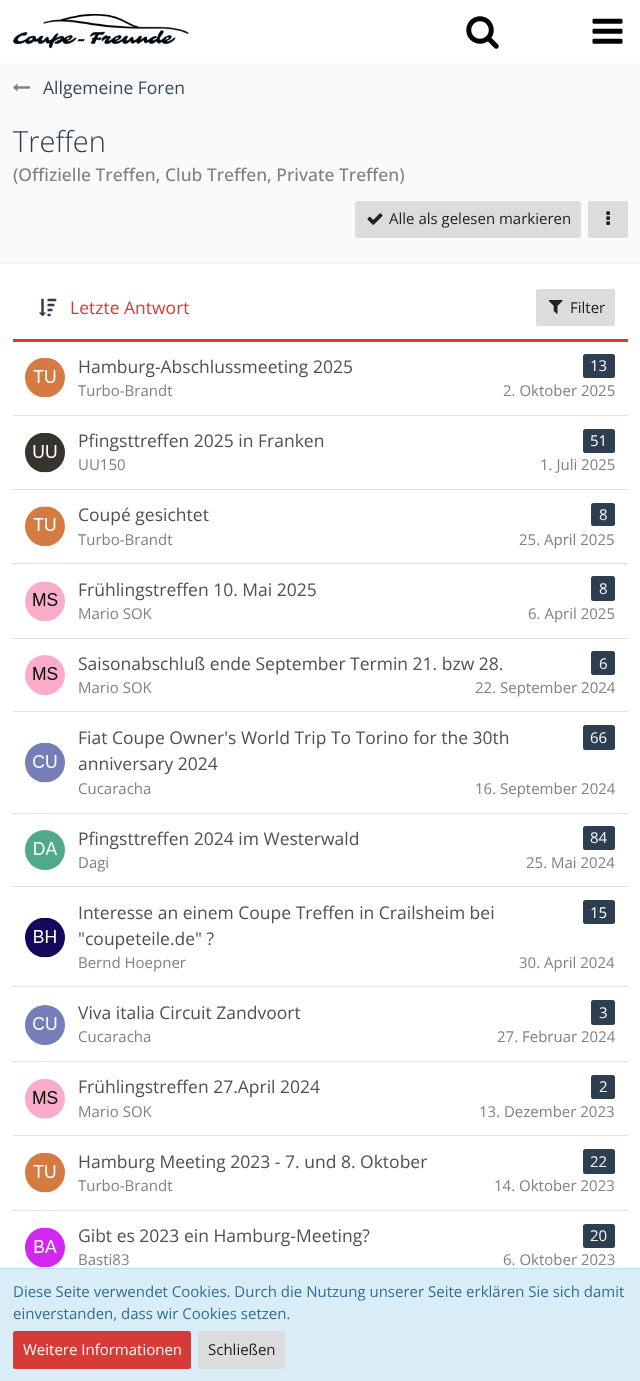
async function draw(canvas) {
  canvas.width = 640;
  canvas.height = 1381;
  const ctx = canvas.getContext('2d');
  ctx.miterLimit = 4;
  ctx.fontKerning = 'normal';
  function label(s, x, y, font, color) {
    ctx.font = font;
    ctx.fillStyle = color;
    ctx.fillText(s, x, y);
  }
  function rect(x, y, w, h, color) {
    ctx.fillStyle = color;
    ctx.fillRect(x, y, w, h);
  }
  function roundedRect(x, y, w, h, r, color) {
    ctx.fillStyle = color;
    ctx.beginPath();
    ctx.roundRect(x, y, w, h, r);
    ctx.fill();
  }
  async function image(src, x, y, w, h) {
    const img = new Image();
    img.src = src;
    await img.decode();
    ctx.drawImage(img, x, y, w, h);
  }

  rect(0, 0, 640, 1381, '#fafafa');
  rect(0, 0, 640, 63, '#fff');
  await image('assets/img1.png', 13, 13, 176, 36);
  await image('assets/img2.png', 466, 16, 33, 33);
  await image('assets/img3.png', 592, 18, 31, 26);
  await image('assets/img4.png', 13, 83, 17, 9);
  label('Allgemeine Foren', 43, 94, '17.5px Open Sans', '#34495e');
  label('Treffen', 13, 152, '300 29px Open Sans', '#2c3e50');
  label('(Offizielle Treffen, Club Treffen, Private Treffen)', 13, 181, '500 17.5px Open Sans', '#7d8287');
  roundedRect(355, 201, 226, 37, 2.5, '#dcdcdd');
  await image('assets/img5.png', 367, 213, 16, 12);
  label('Alle als gelesen markieren', 389, 224, '15px Open Sans', '#212121');
  roundedRect(588, 201, 40, 37, 2.5, '#dcdcdd');
  await image('assets/img6.png', 606, 211, 4, 14);
  rect(0, 264, 640, 1004, '#fff');
  rect(0, 263, 640, 1, '#ecf1f7');
  rect(13, 339, 615, 3, '#d63b37');
  await image('assets/img7.png', 39, 298, 18, 19);
  label('Letzte Antwort', 70, 314, '17.5px Open Sans', '#d63b37');
  roundedRect(536, 289, 79, 37, 2.5, '#dcdcdd');
  await image('assets/img8.png', 548, 300, 15, 14);
  label('Filter', 570, 313, '15px Open Sans', '#212121');
  await image('assets/img9.png', 25, 358, 40, 40);
  label('Hamburg-Abschlussmeeting 2025', 78, 373, '17.5px Open Sans', '#505050');
  roundedRect(583, 354, 32, 24, 2.5, '#2c3e50');
  label('13', 590, 371, '15px Open Sans', '#fafafa');
  label('Turbo-Brandt', 78, 396, '15px Open Sans', '#7d8287');
  label('2. Oktober 2025', 503, 396, '15px Open Sans', '#7d8287');
  rect(13, 415, 615, 1, '#e0e0e0');
  await image('assets/img10.png', 25, 433, 40, 40);
  label('Pfingsttreffen 2025 in Franken', 78, 447, '17.5px Open Sans', '#505050');
  roundedRect(583, 429, 32, 24, 2.5, '#2c3e50');
  label('51', 590, 446, '15px Open Sans', '#fafafa');
  label('UU150', 78, 470, '15px Open Sans', '#7d8287');
  label('1. Juli 2025', 540, 470, '15px Open Sans', '#7d8287');
  rect(13, 489, 615, 1, '#e0e0e0');
  await image('assets/img11.png', 25, 506, 40, 40);
  label('Coupé gesichtet', 78, 521, '17.5px Open Sans', '#505050');
  roundedRect(591, 503, 24, 23, 2.5, '#2c3e50');
  label('8', 599, 520, '15px Open Sans', '#fafafa');
  label('Turbo-Brandt', 78, 545, '15px Open Sans', '#7d8287');
  label('25. April 2025', 519, 545, '15px Open Sans', '#7d8287');
  rect(13, 563, 615, 1, '#e0e0e0');
  await image('assets/img12.png', 25, 581, 40, 40);
  label('Frühlingstreffen 10. Mai 2025', 78, 596, '17.5px Open Sans', '#505050');
  roundedRect(591, 576, 24, 25, 2.5, '#2c3e50');
  label('8', 599, 594, '15px Open Sans', '#fafafa');
  label('Mario SOK', 78, 619, '15px Open Sans', '#7d8287');
  label('6. April 2025', 528, 619, '15px Open Sans', '#7d8287');
  rect(13, 638, 615, 1, '#e0e0e0');
  await image('assets/img13.png', 25, 655, 40, 40);
  label('Saisonabschluß ende September Termin 21. bzw 28.', 78, 670, '17.5px Open Sans', '#505050');
  roundedRect(591, 651, 24, 24, 2.5, '#2c3e50');
  label('6', 599, 669, '15px Open Sans', '#fafafa');
  label('Mario SOK', 78, 693, '15px Open Sans', '#7d8287');
  label('22. September 2024', 475, 693, '15px Open Sans', '#7d8287');
  rect(13, 711, 615, 1, '#e0e0e0');
  await image('assets/img14.png', 25, 743, 40, 40);
  label('Fiat Coupe Owner\'s World Trip To Torino for the 30th', 78, 744, '17.5px Open Sans', '#505050');
  label('anniversary 2024', 78, 770, '17.5px Open Sans', '#505050');
  roundedRect(583, 725, 32, 25, 2.5, '#2c3e50');
  label('66', 590, 743, '15px Open Sans', '#fafafa');
  label('Cucaracha', 78, 794, '15px Open Sans', '#7d8287');
  label('16. September 2024', 475, 794, '15px Open Sans', '#7d8287');
  rect(13, 813, 615, 1, '#e0e0e0');
  await image('assets/img15.png', 25, 830, 40, 40);
  label('Pfingsttreffen 2024 im Westerwald', 78, 845, '17.5px Open Sans', '#505050');
  roundedRect(583, 826, 32, 24, 2.5, '#2c3e50');
  label('84', 590, 843, '15px Open Sans', '#fafafa');
  label('Dagi', 78, 868, '15px Open Sans', '#7d8287');
  label('25. Mai 2024', 526, 868, '15px Open Sans', '#7d8287');
  rect(13, 886, 615, 1, '#e0e0e0');
  await image('assets/img16.png', 25, 918, 40, 40);
  label('Interesse an einem Coupe Treffen in Crailsheim bei', 78, 919, '17.5px Open Sans', '#505050');
  label('"coupeteile.de" ?', 78, 945, '17.5px Open Sans', '#505050');
  roundedRect(583, 900, 32, 24, 2.5, '#2c3e50');
  label('15', 590, 918, '15px Open Sans', '#fafafa');
  label('Bernd Hoepner', 78, 968, '15px Open Sans', '#7d8287');
  label('30. April 2024', 519, 968, '15px Open Sans', '#7d8287');
  rect(13, 986, 615, 1, '#e0e0e0');
  await image('assets/img17.png', 25, 1005, 40, 40);
  label('Viva italia Circuit Zandvoort', 78, 1019, '17.5px Open Sans', '#505050');
  roundedRect(591, 1000, 24, 25, 2.5, '#2c3e50');
  label('3', 599, 1018, '15px Open Sans', '#fafafa');
  label('Cucaracha', 78, 1042, '15px Open Sans', '#7d8287');
  label('27. Februar 2024', 497, 1042, '15px Open Sans', '#7d8287');
  rect(13, 1061, 615, 1, '#e0e0e0');
  await image('assets/img18.png', 25, 1079, 40, 40);
  label('Frühlingstreffen 27.April 2024', 78, 1093, '17.5px Open Sans', '#505050');
  roundedRect(591, 1075, 24, 24, 2.5, '#2c3e50');
  label('2', 599, 1092, '15px Open Sans', '#fafafa');
  label('Mario SOK', 78, 1117, '15px Open Sans', '#7d8287');
  label('13. Dezember 2023', 479, 1117, '15px Open Sans', '#7d8287');
  rect(13, 1135, 615, 1, '#e0e0e0');
  await image('assets/img9.png', 25, 1153, 40, 40);
  label('Hamburg Meeting 2023 - 7. und 8. Oktober', 78, 1168, '17.5px Open Sans', '#505050');
  roundedRect(583, 1149, 32, 25, 2.5, '#2c3e50');
  label('22', 590, 1167, '15px Open Sans', '#fafafa');
  label('Turbo-Brandt', 78, 1191, '15px Open Sans', '#7d8287');
  label('14. Oktober 2023', 494, 1191, '15px Open Sans', '#7d8287');
  rect(13, 1210, 615, 1, '#e0e0e0');
  await image('assets/img19.png', 25, 1228, 40, 40);
  label('Gibt es 2023 ein Hamburg-Meeting?', 78, 1242, '17.5px Open Sans', '#505050');
  roundedRect(583, 1224, 32, 24, 2.5, '#2c3e50');
  label('20', 590, 1241, '15px Open Sans', '#fafafa');
  label('Basti83', 78, 1265, '15px Open Sans', '#7d8287');
  label('6. Oktober 2023', 503, 1265, '15px Open Sans', '#7d8287');
  rect(0, 1269, 640, 112, '#d9edf7');
  rect(0, 1268, 640, 1, '#bcdff1');
  label('Diese Seite verwendet Cookies. Durch die Nutzung unserer Seite erklären Sie sich damit', 13, 1297, '15px Open Sans', '#31708f');
  label('einverstanden, dass wir Cookies setzen.', 13, 1319, '15px Open Sans', '#31708f');
  roundedRect(13, 1331, 178, 38, 2.5, '#d63b37');
  label('Weitere Informationen', 23, 1355, '15px Open Sans', '#fafafa');
  roundedRect(198, 1331, 87, 38, 2.5, '#dcdcdd');
  label('Schließen', 208, 1355, '15px Open Sans', '#212121');
}

draw(document.querySelector('canvas'));
